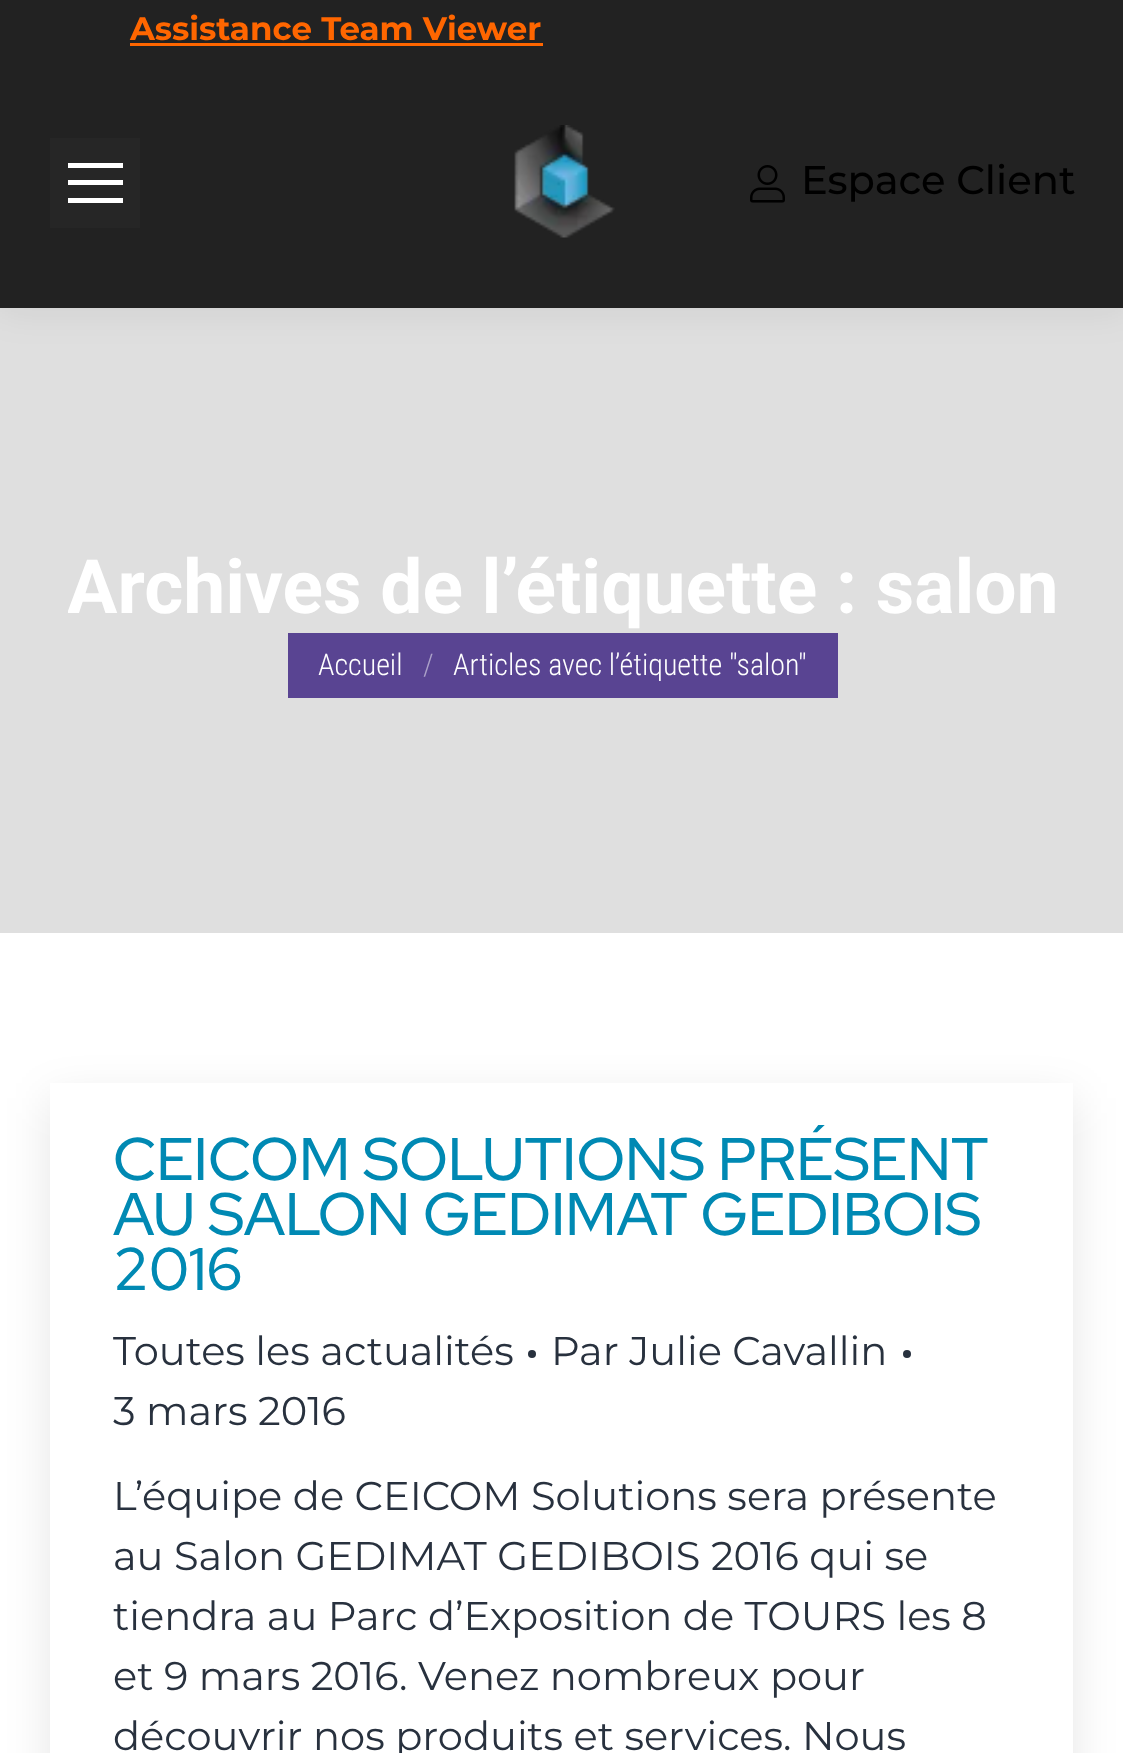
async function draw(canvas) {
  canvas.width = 1123;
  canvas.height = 1753;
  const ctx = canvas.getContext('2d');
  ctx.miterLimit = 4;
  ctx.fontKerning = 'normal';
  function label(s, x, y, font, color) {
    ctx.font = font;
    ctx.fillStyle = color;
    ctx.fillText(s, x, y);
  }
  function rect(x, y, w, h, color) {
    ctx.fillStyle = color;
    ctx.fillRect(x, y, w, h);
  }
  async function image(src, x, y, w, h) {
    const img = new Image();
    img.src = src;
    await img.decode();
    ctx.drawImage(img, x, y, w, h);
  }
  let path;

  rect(0, 0, 1123, 1753, '#fff');
  rect(0, 308, 1123, 625, '#dfdfdf');
  ctx.fillStyle = '#00000012';
  ctx.filter = 'blur(19px)';
  ctx.beginPath();
  ctx.rect(-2, -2, 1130, 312);
  ctx.fill();
  ctx.filter = 'none';
  rect(0, 0, 1123, 308, '#222');
  label('Assistance Team Viewer', 130, 40, 'bold 32.5px Montserrat', '#f60');
  rect(130, 43, 413, 3, '#f60');
  rect(50, 138, 90, 90, '#262626');
  rect(68, 163, 55, 5, '#fff');
  rect(68, 180, 55, 5, '#fff');
  rect(68, 198, 55, 5, '#fff');
  await image('assets/img1.png', 514, 125, 101, 113);
  await image('assets/img2.png', 750, 165, 35, 38);
  label('Espace Client', 801, 194, '500 40px Montserrat', '#000');
  ctx.save();
  ctx.beginPath();
  ctx.rect(68, 543, 990, 90);
  ctx.clip();
  label('Archives de l’étiquette', 67, 613, 'bold 75px Roboto', '#fff');
  ctx.restore();
  label(': salon', 836, 613, 'bold 75px Roboto', '#fff');
  rect(288, 633, 550, 65, '#594492');
  label('Accueil', 318, 675, '300 30px Roboto Condensed', '#fff');
  label('/', 423, 675, '300 30px Roboto Condensed', '#aca2c9');
  label('Articles avec l’étiquette "salon"', 453, 675, '300 30px Roboto Condensed', '#fff');
  ctx.save();
  path = new Path2D('M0 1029H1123V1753H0ZM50 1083H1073V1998H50Z');
  ctx.clip(path, 'evenodd');
  ctx.fillStyle = '#0000001a';
  ctx.filter = 'blur(22.5px)';
  ctx.beginPath();
  ctx.rect(50, 1098, 1023, 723);
  ctx.fill();
  ctx.filter = 'none';
  ctx.restore();
  label('CEICOM SOLUTIONS PRÉSENT', 113, 1180, '500 60px Red Hat Display', '#0089b3');
  label('AU SALON GEDIMAT GEDIBOIS', 113, 1235, '500 60px Red Hat Display', '#0089b3');
  label('2016', 113, 1290, '500 60px Red Hat Display', '#0089b3');
  label('Toutes les actualités', 113, 1365, '40px Montserrat', '#28313e');
  ctx.beginPath();
  ctx.arc(532, 1354, 4, 0, 2 * Math.PI);
  ctx.fill();
  label('Par Julie Cavallin', 551, 1365, '40px Montserrat', '#28313e');
  ctx.beginPath();
  ctx.arc(907, 1354, 4, 0, 2 * Math.PI);
  ctx.fill();
  label('3 mars 2016', 113, 1425, '40px Montserrat', '#28313e');
  label('L’équipe de CEICOM Solutions sera présente', 113, 1510, '40px Montserrat', '#28313e');
  label('au Salon GEDIMAT GEDIBOIS 2016 qui se', 113, 1570, '40px Montserrat', '#28313e');
  label('tiendra au Parc d’Exposition de TOURS les 8', 113, 1630, '40px Montserrat', '#28313e');
  label('et 9 mars 2016. Venez nombreux pour', 113, 1690, '40px Montserrat', '#28313e');
  label('découvrir nos produits et services. Nous', 113, 1750, '40px Montserrat', '#28313e');
}

draw(document.querySelector('canvas'));
